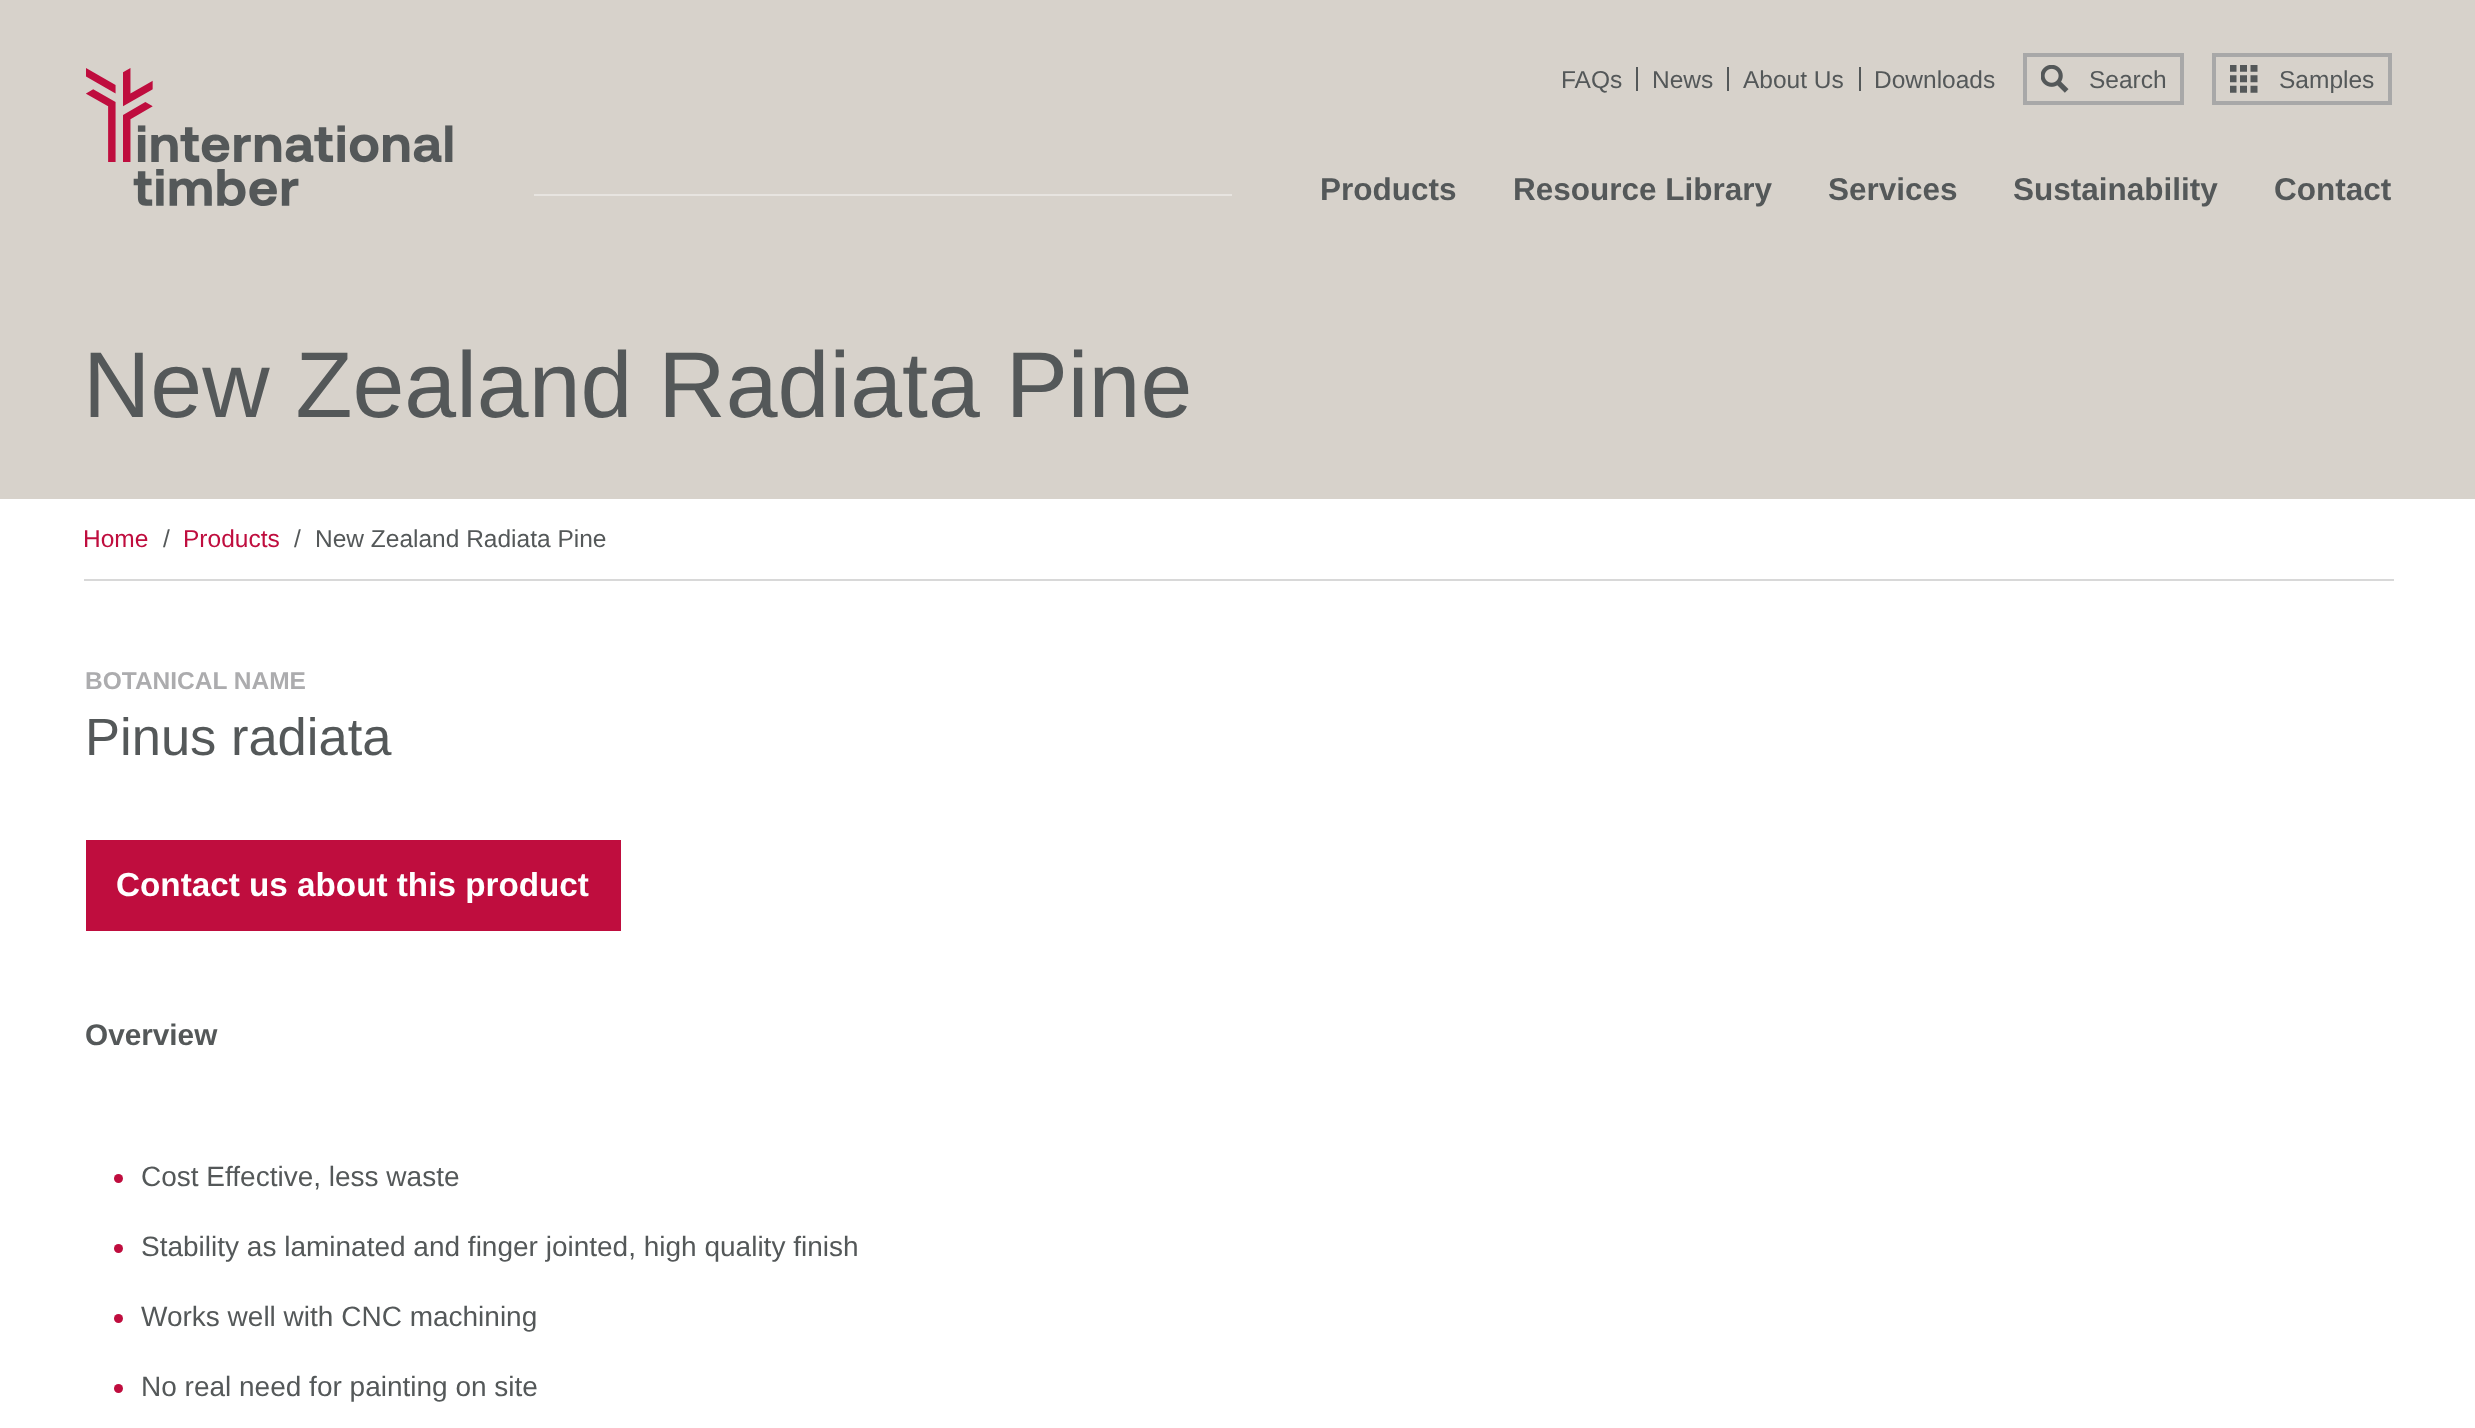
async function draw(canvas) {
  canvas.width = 2475;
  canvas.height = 1428;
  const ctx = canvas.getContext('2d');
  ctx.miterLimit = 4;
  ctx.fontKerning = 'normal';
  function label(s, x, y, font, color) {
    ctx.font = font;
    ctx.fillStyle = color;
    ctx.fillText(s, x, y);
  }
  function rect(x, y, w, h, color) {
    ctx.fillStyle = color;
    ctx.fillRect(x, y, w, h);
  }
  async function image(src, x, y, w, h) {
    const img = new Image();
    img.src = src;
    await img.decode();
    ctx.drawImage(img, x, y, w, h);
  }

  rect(0, 0, 2475, 1428, '#fff');
  rect(0, 0, 2475, 499, '#d7d2cb');
  await image('assets/img1.png', 86, 68, 367, 138);
  rect(534, 194, 698, 2, '#e7e4e0');
  rect(1636, 67, 2, 24, '#545859');
  label('FAQs', 1561, 88, '24.5px Liberation Sans', '#545859');
  rect(1727, 67, 2, 24, '#545859');
  label('News', 1652, 88, '24.5px Liberation Sans', '#545859');
  rect(1859, 67, 2, 24, '#545859');
  label('About Us', 1743, 88, '24.5px Liberation Sans', '#545859');
  label('Downloads', 1874, 88, '24.5px Liberation Sans', '#545859');
  ctx.strokeStyle = '#a8a8a8';
  ctx.lineWidth = 4;
  ctx.strokeRect(2025, 55, 157, 48);
  await image('assets/img2.png', 2041, 65, 28, 28);
  label('Search', 2089, 88, '24.5px Liberation Sans', '#545859');
  ctx.strokeRect(2214, 55, 176, 48);
  await image('assets/img3.png', 2230, 65, 28, 28);
  label('Samples', 2279, 88, '24.5px Liberation Sans', '#545859');
  label('Products', 1320, 200, 'bold 31.5px Liberation Sans', '#545859');
  label('Resource Library', 1513, 200, 'bold 31.5px Liberation Sans', '#545859');
  label('Services', 1828, 200, 'bold 31.5px Liberation Sans', '#545859');
  label('Sustainability', 2013, 200, 'bold 31.5px Liberation Sans', '#545859');
  label('Contact', 2274, 200, 'bold 31.5px Liberation Sans', '#545859');
  label('New Zealand Radiata Pine', 83, 417, '93.25px Liberation Sans', '#545859');
  rect(84, 579, 2310, 2, '#d8d8d8');
  label('Home', 83, 547, '24.5px Liberation Sans', '#bf0d3e');
  label('/', 163, 547, '24.5px Liberation Sans', '#545859');
  label('Products', 183, 547, '24.5px Liberation Sans', '#bf0d3e');
  label('/', 294, 547, '24.5px Liberation Sans', '#545859');
  label('New Zealand Radiata Pine', 315, 547, '24.5px Liberation Sans', '#545859');
  label('BOTANICAL NAME', 85, 689, 'bold 24.5px Liberation Sans', '#acacae');
  label('Pinus radiata', 85, 755, '52.5px Liberation Sans', '#545859');
  rect(86, 840, 535, 91, '#bf0d3e');
  label('Contact us about this product', 116, 896, 'bold 33.25px Liberation Sans', '#fff');
  label('Overview', 85, 1045, 'bold 29.75px Liberation Sans', '#545859');
  ctx.fillStyle = '#bf0d3e';
  ctx.beginPath();
  ctx.arc(118.5, 1178.5, 4.5, 0, 2 * Math.PI);
  ctx.fill();
  label('Cost Effective, less waste', 141, 1186, '28px Liberation Sans', '#545859');
  ctx.fillStyle = '#bf0d3e';
  ctx.beginPath();
  ctx.arc(118.5, 1248.5, 4.5, 0, 2 * Math.PI);
  ctx.fill();
  label('Stability as laminated and finger jointed, high quality finish', 141, 1256, '28px Liberation Sans', '#545859');
  ctx.fillStyle = '#bf0d3e';
  ctx.beginPath();
  ctx.arc(118.5, 1318.5, 4.5, 0, 2 * Math.PI);
  ctx.fill();
  label('Works well with CNC machining', 141, 1326, '28px Liberation Sans', '#545859');
  ctx.fillStyle = '#bf0d3e';
  ctx.beginPath();
  ctx.arc(118.5, 1388.5, 4.5, 0, 2 * Math.PI);
  ctx.fill();
  label('No real need for painting on site', 141, 1396, '28px Liberation Sans', '#545859');
}

draw(document.querySelector('canvas'));
